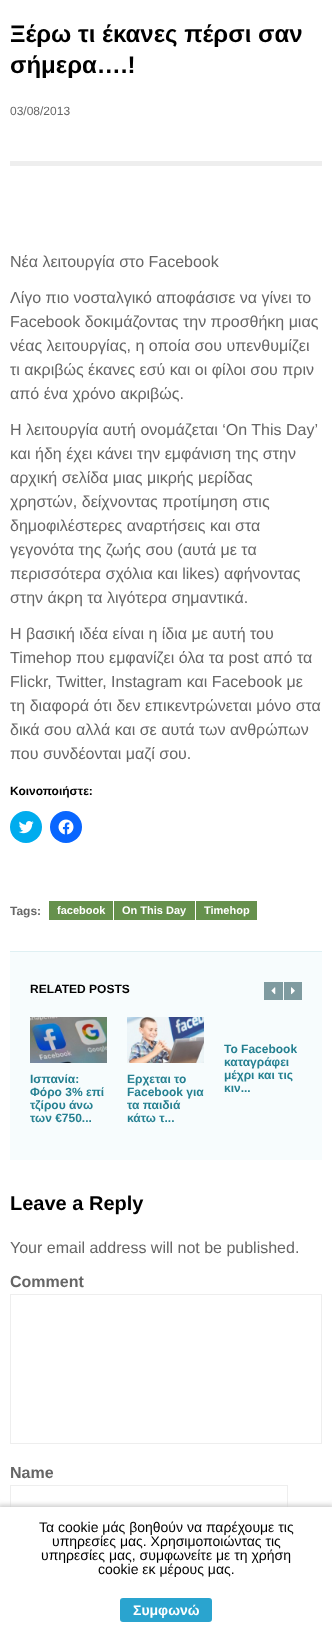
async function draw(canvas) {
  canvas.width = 332;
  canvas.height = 1644;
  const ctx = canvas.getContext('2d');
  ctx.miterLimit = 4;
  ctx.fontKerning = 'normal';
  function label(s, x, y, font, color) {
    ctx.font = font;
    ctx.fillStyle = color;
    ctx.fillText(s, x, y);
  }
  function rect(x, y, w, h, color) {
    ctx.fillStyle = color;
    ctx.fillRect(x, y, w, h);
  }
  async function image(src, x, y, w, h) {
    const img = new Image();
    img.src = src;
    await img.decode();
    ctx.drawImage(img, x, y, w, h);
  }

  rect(0, 0, 332, 1644, '#fff');
  label('Ξέρω τι έκανες πέρσι σαν', 10, 42, 'bold 24px Liberation Sans', '#000');
  label('σήμερα….!', 10, 73, 'bold 24px Liberation Sans', '#000');
  rect(10, 161, 312, 5, '#eee');
  label('03/08/2013', 10, 115, '12px Liberation Sans', '#666');
  label('Νέα λειτουργία στο Facebook', 10, 267, '16px Liberation Sans', '#666');
  label('Λίγο πιο νοσταλγικό αποφάσισε να γίνει το', 10, 303, '16px Liberation Sans', '#666');
  label('Facebook δοκιμάζοντας την προσθήκη μιας', 10, 327, '16px Liberation Sans', '#666');
  label('νέας λειτουργίας, η οποία σου υπενθυμίζει', 10, 351, '16px Liberation Sans', '#666');
  label('τι ακριβώς έκανες εσύ και οι φίλοι σου πριν', 10, 375, '16px Liberation Sans', '#666');
  label('από ένα χρόνο ακριβώς.', 10, 399, '16px Liberation Sans', '#666');
  label('Η λειτουργία αυτή ονομάζεται ‘On This Day’', 10, 435, '16px Liberation Sans', '#666');
  label('και ήδη έχει κάνει την εμφάνιση της στην', 10, 459, '16px Liberation Sans', '#666');
  label('αρχική σελίδα μιας μικρής μερίδας', 10, 483, '16px Liberation Sans', '#666');
  label('χρηστών, δείχνοντας προτίμηση στις', 10, 507, '16px Liberation Sans', '#666');
  label('δημοφιλέστερες αναρτήσεις και στα', 10, 531, '16px Liberation Sans', '#666');
  label('γεγονότα της ζωής σου (αυτά με τα', 10, 555, '16px Liberation Sans', '#666');
  label('περισσότερα σχόλια και likes) αφήνοντας', 10, 579, '16px Liberation Sans', '#666');
  label('στην άκρη τα λιγότερα σημαντικά.', 10, 603, '16px Liberation Sans', '#666');
  label('Η βασική ιδέα είναι η ίδια με αυτή του', 10, 639, '16px Liberation Sans', '#666');
  label('Timehop που εμφανίζει όλα τα post από τα', 10, 663, '16px Liberation Sans', '#666');
  label('Flickr, Twitter, Instagram και Facebook με', 10, 687, '16px Liberation Sans', '#666');
  label('τη διαφορά ότι δεν επικεντρώνεται μόνο στα', 10, 711, '16px Liberation Sans', '#666');
  label('δικά σου αλλά και σε αυτά των ανθρώπων', 10, 735, '16px Liberation Sans', '#666');
  label('που συνδέονται μαζί σου.', 10, 759, '16px Liberation Sans', '#666');
  label('Κοινοποιήστε:', 10, 795, 'bold 12px Liberation Sans', '#000');
  ctx.fillStyle = '#00acee';
  ctx.beginPath();
  ctx.arc(26, 827, 16, 0, 2 * Math.PI);
  ctx.fill();
  await image('assets/img1.png', 18, 821, 16, 13);
  ctx.fillStyle = '#0866ff';
  ctx.beginPath();
  ctx.arc(66, 827, 16, 0, 2 * Math.PI);
  ctx.fill();
  await image('assets/img2.png', 58, 819, 16, 16);
  label('Tags:', 10, 915, 'bold 12px Liberation Sans', '#666');
  rect(49, 901, 64, 19, '#66914d');
  label('facebook', 57, 914, 'bold 11px Liberation Sans', '#fff');
  rect(114, 901, 81, 19, '#66914d');
  label('On This Day', 122, 914, 'bold 11px Liberation Sans', '#fff');
  rect(196, 901, 61, 19, '#66914d');
  label('Timehop', 204, 914, 'bold 11px Liberation Sans', '#fff');
  rect(10, 952, 312, 208, '#f7fcfd');
  rect(10, 951, 312, 1, '#dff0f3');
  label('RELATED POSTS', 30, 993, 'bold 12px Liberation Sans', '#000');
  rect(264, 982, 19, 18, '#7f9ba0');
  await image('assets/img3.png', 271, 987, 5, 8);
  rect(284, 982, 18, 18, '#7f9ba0');
  await image('assets/img4.png', 291, 987, 4, 8);
  label('Το Facebook', 224, 1053, 'bold 12px Liberation Sans', '#258091');
  label('καταγράφει', 224, 1066, 'bold 12px Liberation Sans', '#258091');
  label('μέχρι και τις', 224, 1079, 'bold 12px Liberation Sans', '#258091');
  label('κιν...', 224, 1092, 'bold 12px Liberation Sans', '#258091');
  await image('assets/img5.png', 30, 1017, 77, 46);
  label('Ισπανία:', 30, 1083, 'bold 12px Liberation Sans', '#258091');
  label('Φόρο 3% επί', 30, 1096, 'bold 12px Liberation Sans', '#258091');
  label('τζίρου άνω', 30, 1109, 'bold 12px Liberation Sans', '#258091');
  label('των €750...', 30, 1122, 'bold 12px Liberation Sans', '#258091');
  await image('assets/img6.png', 127, 1017, 77, 46);
  label('Ερχεται το', 127, 1083, 'bold 12px Liberation Sans', '#258091');
  label('Facebook για', 127, 1096, 'bold 12px Liberation Sans', '#258091');
  label('τα παιδιά', 127, 1109, 'bold 12px Liberation Sans', '#258091');
  label('κάτω τ...', 127, 1122, 'bold 12px Liberation Sans', '#258091');
  label('Leave a Reply', 10, 1210, 'bold 20px Liberation Sans', '#000');
  label('Your email address will not be published.', 10, 1253, '16px Liberation Sans', '#666');
  label('Comment', 10, 1287, 'bold 16px Liberation Sans', '#666');
  ctx.strokeStyle = '#eee';
  ctx.strokeRect(10.5, 1294.5, 311, 149);
  label('Name', 10, 1478, 'bold 16px Liberation Sans', '#666');
  ctx.strokeRect(10.5, 1485.5, 277, 39);
  ctx.fillStyle = '#ccc';
  ctx.filter = 'blur(2.5px)';
  ctx.beginPath();
  ctx.rect(-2, 1505, 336, 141);
  ctx.fill();
  ctx.filter = 'none';
  rect(0, 1507, 332, 137, '#fff');
  label('Τα cookie μάς βοηθούν να παρέχουμε τις', 39, 1532, '14px Liberation Sans', '#000');
  label('υπηρεσίες μας. Χρησιμοποιώντας τις', 52, 1546, '14px Liberation Sans', '#000');
  label('υπηρεσίες μας, συμφωνείτε με τη χρήση', 41, 1560, '14px Liberation Sans', '#000');
  label('cookie εκ μέρους μας.', 98, 1574, '14px Liberation Sans', '#000');
  ctx.fillStyle = '#2aa4cf';
  ctx.beginPath();
  ctx.roundRect(119, 1597, 94, 26, 4);
  ctx.fill();
  ctx.strokeStyle = '#fff';
  ctx.lineWidth = 2;
  ctx.stroke();
  label('Συμφωνώ', 133, 1615, 'bold 14px Liberation Sans', '#fff');
}

draw(document.querySelector('canvas'));
